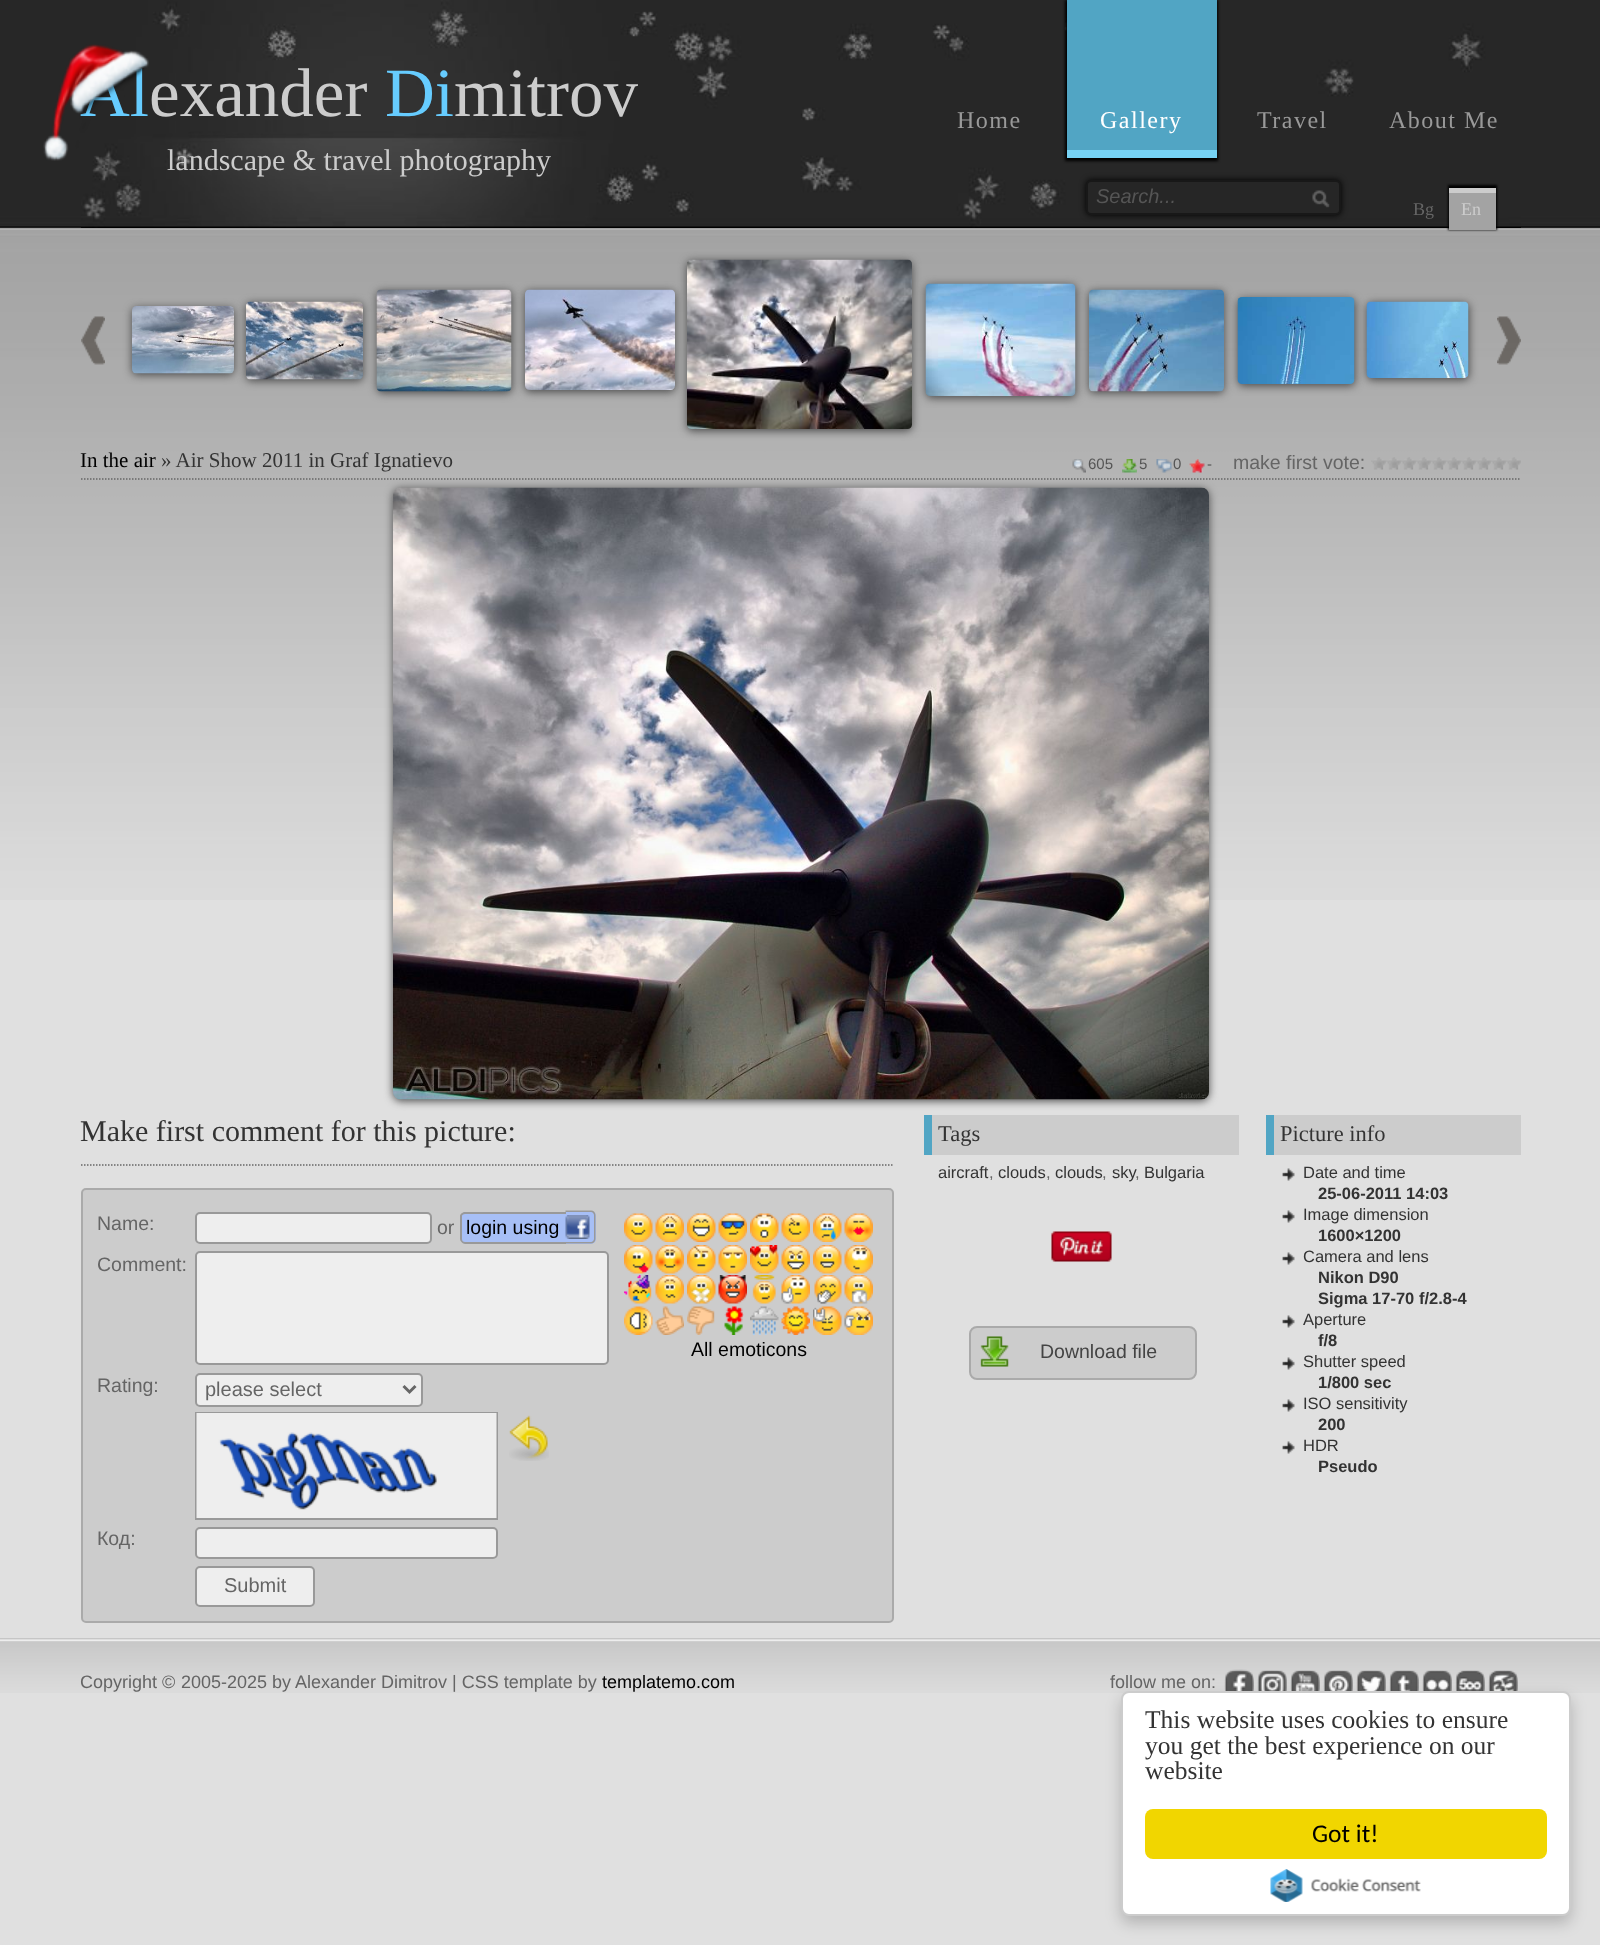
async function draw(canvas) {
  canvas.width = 1600;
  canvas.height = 1945;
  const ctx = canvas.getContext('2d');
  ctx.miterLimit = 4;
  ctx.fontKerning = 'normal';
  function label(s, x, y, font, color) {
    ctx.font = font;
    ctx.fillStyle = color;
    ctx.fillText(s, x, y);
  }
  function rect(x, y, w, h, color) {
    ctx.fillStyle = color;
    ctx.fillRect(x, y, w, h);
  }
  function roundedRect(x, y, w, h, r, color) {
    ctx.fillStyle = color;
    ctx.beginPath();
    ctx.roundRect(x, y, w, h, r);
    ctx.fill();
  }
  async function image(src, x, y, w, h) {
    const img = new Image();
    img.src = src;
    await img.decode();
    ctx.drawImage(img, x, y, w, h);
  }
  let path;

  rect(0, 0, 1600, 1945, '#e0e0e0');
  await image('assets/img1.png', 0, 0, 1600, 900);
  await image('assets/img2.png', 81, 0, 1440, 228);
  label('Al', 80, 116, '69px Liberation Serif', '#6cf');
  await image('assets/img3.png', 43, 44, 106, 117);
  label('exander', 149, 116, '69px Liberation Serif', '#ccc');
  label('Di', 385, 116, '69px Liberation Serif', '#6cf');
  label('mitrov', 454, 116, '69px Liberation Serif', '#ccc');
  label('landscape & travel photography', 167, 170, '30px Liberation Serif', '#ccc');
  ctx.letterSpacing = '1.5px';
  label('Home', 957, 128, '24px Liberation Serif', '#999');
  ctx.fillStyle = '#000';
  ctx.filter = 'blur(1.5px)';
  ctx.beginPath();
  ctx.rect(1065, 0, 153, 161);
  ctx.fill();
  ctx.filter = 'none';
  rect(1067, 0, 150, 150, '#51a5c4');
  rect(1067, 150, 150, 8, '#76d2f4');
  label('Gallery', 1100, 128, '24px Liberation Serif', '#fff');
  label('Travel', 1257, 128, '24px Liberation Serif', '#999');
  label('About Me', 1389, 128, '24px Liberation Serif', '#999');
  ctx.fillStyle = '#000';
  ctx.filter = 'blur(3px)';
  ctx.beginPath();
  ctx.roundRect(1086, 180, 255, 35, 5);
  ctx.fill();
  ctx.filter = 'none';
  ctx.fillStyle = '#262626';
  ctx.beginPath();
  ctx.roundRect(1087, 181, 253, 33, 4);
  ctx.fill();
  ctx.strokeStyle = '#181818';
  ctx.lineWidth = 2;
  ctx.stroke();
  ctx.letterSpacing = '0px';
  label('Search...', 1096, 203, 'italic 20px Liberation Sans', '#555');
  await image('assets/img4.png', 1312, 190, 18, 18);
  label('Bg', 1413, 215, '18px Liberation Serif', '#656565');
  ctx.fillStyle = '#000';
  ctx.filter = 'blur(1px)';
  ctx.beginPath();
  ctx.rect(1448, 185, 49, 45);
  ctx.fill();
  ctx.filter = 'none';
  rect(1449, 193, 47, 37, '#a3a3a3');
  rect(1449, 188, 47, 5, '#ccc');
  label('En', 1461, 215, '18px Liberation Serif', '#ccc');
  await image('assets/img5.png', 81, 316, 24, 49);
  ctx.fillStyle = '#4a4a4a';
  ctx.filter = 'blur(4.5px)';
  ctx.beginPath();
  ctx.roundRect(132, 308, 102, 67, 5);
  ctx.fill();
  ctx.filter = 'none';
  await image('assets/img6.png', 132, 306, 102, 68);
  ctx.filter = 'blur(4.5px)';
  ctx.beginPath();
  ctx.roundRect(246, 303, 117, 78, 5);
  ctx.fill();
  ctx.filter = 'none';
  await image('assets/img7.png', 246, 301, 117, 79);
  ctx.filter = 'blur(4.5px)';
  ctx.beginPath();
  ctx.roundRect(377, 291, 135, 102, 5);
  ctx.fill();
  ctx.filter = 'none';
  await image('assets/img8.png', 376, 289, 136, 103);
  ctx.filter = 'blur(4.5px)';
  ctx.beginPath();
  ctx.roundRect(525, 291, 150, 101, 5);
  ctx.fill();
  ctx.filter = 'none';
  await image('assets/img9.png', 525, 289, 150, 101);
  ctx.filter = 'blur(4.5px)';
  ctx.beginPath();
  ctx.roundRect(687, 261, 225, 170, 5);
  ctx.fill();
  ctx.filter = 'none';
  await image('assets/img10.png', 687, 259, 225, 170);
  ctx.filter = 'blur(4.5px)';
  ctx.beginPath();
  ctx.roundRect(926, 285, 150, 113, 5);
  ctx.fill();
  ctx.filter = 'none';
  await image('assets/img11.png', 925, 283, 151, 113);
  ctx.filter = 'blur(4.5px)';
  ctx.beginPath();
  ctx.roundRect(1089, 291, 135, 102, 5);
  ctx.fill();
  ctx.filter = 'none';
  await image('assets/img12.png', 1089, 289, 135, 103);
  ctx.filter = 'blur(4.5px)';
  ctx.beginPath();
  ctx.roundRect(1238, 299, 117, 87, 5);
  ctx.fill();
  ctx.filter = 'none';
  await image('assets/img13.png', 1237, 297, 118, 87);
  ctx.filter = 'blur(4.5px)';
  ctx.beginPath();
  ctx.roundRect(1367, 303, 102, 77, 5);
  ctx.fill();
  ctx.filter = 'none';
  await image('assets/img14.png', 1366, 301, 103, 77);
  await image('assets/img15.png', 1497, 316, 24, 49);
  path = new Path2D('M81 479H1521');
  ctx.strokeStyle = '#666';
  ctx.lineWidth = 1.5;
  ctx.setLineDash([1.5, 1.5]);
  ctx.stroke(path);
  label('In the air', 80, 467, '21px Liberation Serif', '#000');
  label('» Air Show 2011 in Graf Ignatievo', 161, 467, '21px Liberation Serif', '#333');
  await image('assets/img16.png', 1072, 459, 14, 14);
  label('605', 1088, 469, '15px Liberation Sans', '#555');
  await image('assets/img17.png', 1122, 459, 15, 14);
  label('5', 1139, 469, '15px Liberation Sans', '#555');
  await image('assets/img18.png', 1156, 459, 16, 14);
  label('0', 1173, 469, '15px Liberation Sans', '#555');
  await image('assets/img19.png', 1189, 459, 16, 14);
  label('-', 1207, 469, '15px Liberation Sans', '#555');
  label('make first vote:', 1233, 469, '19.5px Liberation Sans', '#656565');
  await image('assets/img20.png', 1371, 457, 150, 13);
  rect(932, 1115, 307, 40, '#ccc');
  rect(924, 1115, 8, 40, '#51a5c4');
  ctx.fillStyle = '#4a4a4a';
  ctx.filter = 'blur(4.5px)';
  ctx.beginPath();
  ctx.roundRect(393, 489, 816, 612, 8);
  ctx.fill();
  ctx.filter = 'none';
  await image('assets/img21.png', 393, 487, 816, 613);
  path = new Path2D('M81 1165H894');
  ctx.stroke(path);
  label('Make first comment for this picture:', 80, 1141, '30px Liberation Serif', '#333');
  ctx.fillStyle = '#ccc';
  ctx.beginPath();
  ctx.roundRect(82, 1189, 811, 433, 4);
  ctx.fill();
  ctx.strokeStyle = '#aaa';
  ctx.lineWidth = 2;
  ctx.setLineDash([]);
  ctx.stroke();
  label('Name:', 97, 1230, '19.5px Liberation Sans', '#656565');
  ctx.fillStyle = '#eee';
  ctx.beginPath();
  ctx.roundRect(196, 1213, 235, 30, 4);
  ctx.fill();
  ctx.strokeStyle = '#999';
  ctx.stroke();
  label('or', 437, 1234, '19.5px Liberation Sans', '#656565');
  ctx.fillStyle = '#a7bff6';
  ctx.beginPath();
  ctx.roundRect(461, 1212, 99, 32, [5, 0, 0, 5]);
  ctx.fill();
  ctx.fillStyle = '#999';
  path = new Path2D('M465 1212H560V1244H465C463 1244 460 1241 460 1239V1216C460 1214 463 1212 465 1212ZM465 1214H560V1242H465C463 1242 462 1241 462 1239V1216C462 1215 463 1214 465 1214Z');
  ctx.fill(path, 'evenodd');
  label('login using', 466, 1234, '19.5px Liberation Sans', '#000');
  rect(560, 1212, 6, 32, '#a7bff6');
  rect(560, 1212, 6, 2, '#999');
  rect(560, 1242, 6, 2, '#999');
  ctx.fillStyle = '#a7bff6';
  ctx.beginPath();
  ctx.roundRect(566, 1211, 30, 33, [0, 5, 5, 0]);
  ctx.fill();
  ctx.fillStyle = '#999';
  path = new Path2D('M565.5 1210.5H591C593.5 1210.5 595.5 1212.5 595.5 1215V1239C595.5 1241.5 593.5 1243.5 591 1243.5H565.5ZM565.5 1212H591C592.5 1212 594 1213.5 594 1215V1239C594 1240.5 592.5 1242 591 1242H565.5Z');
  ctx.fill(path, 'evenodd');
  await image('assets/img22.png', 565, 1215, 25, 24);
  await image('assets/img23.png', 624, 1213, 29, 29);
  await image('assets/img24.png', 655, 1213, 29, 29);
  await image('assets/img25.png', 687, 1213, 29, 29);
  await image('assets/img26.png', 718, 1213, 29, 29);
  await image('assets/img27.png', 750, 1213, 29, 29);
  await image('assets/img28.png', 781, 1213, 29, 29);
  await image('assets/img29.png', 813, 1213, 29, 29);
  await image('assets/img30.png', 844, 1213, 29, 29);
  await image('assets/img31.png', 624, 1245, 29, 29);
  await image('assets/img32.png', 655, 1245, 29, 29);
  await image('assets/img33.png', 687, 1245, 29, 29);
  await image('assets/img34.png', 718, 1245, 29, 29);
  await image('assets/img35.png', 750, 1245, 29, 29);
  await image('assets/img36.png', 781, 1245, 29, 29);
  await image('assets/img37.png', 813, 1245, 29, 29);
  await image('assets/img38.png', 844, 1245, 29, 29);
  await image('assets/img39.png', 624, 1275, 28, 29);
  await image('assets/img40.png', 655, 1275, 29, 29);
  await image('assets/img41.png', 687, 1275, 29, 29);
  await image('assets/img42.png', 718, 1275, 29, 29);
  await image('assets/img43.png', 752, 1275, 24, 29);
  await image('assets/img44.png', 781, 1275, 29, 29);
  await image('assets/img45.png', 814, 1275, 28, 29);
  await image('assets/img46.png', 844, 1275, 29, 29);
  await image('assets/img47.png', 624, 1306, 29, 29);
  await image('assets/img48.png', 655, 1306, 29, 29);
  await image('assets/img49.png', 687, 1306, 28, 29);
  await image('assets/img50.png', 724, 1306, 20, 29);
  await image('assets/img51.png', 750, 1306, 29, 29);
  await image('assets/img52.png', 781, 1306, 29, 29);
  await image('assets/img53.png', 813, 1306, 29, 29);
  await image('assets/img54.png', 844, 1306, 29, 29);
  label('All emoticons', 691, 1356, '19.5px Liberation Sans', '#000');
  label('Comment:', 97, 1271, '19.5px Liberation Sans', '#656565');
  ctx.fillStyle = '#eee';
  ctx.beginPath();
  ctx.roundRect(196, 1252, 412, 112, 4);
  ctx.fill();
  ctx.stroke();
  label('Rating:', 97, 1392, '19.5px Liberation Sans', '#656565');
  ctx.fillStyle = '#eee';
  ctx.beginPath();
  ctx.roundRect(196, 1374, 226, 32, 4);
  ctx.fill();
  ctx.stroke();
  path = new Path2D('M403.5 1386L409.5 1392L415.5 1386');
  ctx.strokeStyle = '#666';
  ctx.lineWidth = 3;
  ctx.stroke(path);
  label('please select', 205, 1396, '20px Liberation Sans', '#656565');
  ctx.strokeStyle = '#999';
  ctx.lineWidth = 2;
  ctx.strokeRect(196, 1413, 301, 106);
  await image('assets/img55.png', 196, 1413, 301, 105);
  await image('assets/img56.png', 509, 1415, 40, 46);
  label('Код:', 97, 1545, '19.5px Liberation Sans', '#656565');
  ctx.fillStyle = '#eee';
  ctx.beginPath();
  ctx.roundRect(196, 1528, 301, 30, 4);
  ctx.fill();
  ctx.stroke();
  ctx.beginPath();
  ctx.roundRect(196, 1567, 118, 39, 4);
  ctx.fill();
  ctx.stroke();
  label('Submit', 224, 1592, '20px Liberation Sans', '#656565');
  label('Tags', 938, 1141, '22.5px Liberation Serif', '#333');
  label('aircraft', 938, 1178, '16.5px Liberation Sans', '#333');
  label(',', 989, 1178, '16.5px Liberation Sans', '#656565');
  label('clouds', 998, 1178, '16.5px Liberation Sans', '#333');
  label(',', 1046, 1178, '16.5px Liberation Sans', '#656565');
  label('clouds', 1055, 1178, '16.5px Liberation Sans', '#333');
  label(',', 1102, 1178, '16.5px Liberation Sans', '#656565');
  label('sky', 1112, 1178, '16.5px Liberation Sans', '#333');
  label(',', 1135, 1178, '16.5px Liberation Sans', '#656565');
  label('Bulgaria', 1144, 1178, '16.5px Liberation Sans', '#333');
  await image('assets/img57.png', 1051, 1231, 61, 31);
  ctx.fillStyle = '#ccc';
  ctx.beginPath();
  ctx.roundRect(970, 1327, 226, 52, 7);
  ctx.fill();
  ctx.strokeStyle = '#aaa';
  ctx.stroke();
  await image('assets/img58.png', 980, 1336, 29, 31);
  label('Download file', 1040, 1358, '19.5px Liberation Sans', '#444');
  rect(1274, 1115, 247, 40, '#ccc');
  rect(1266, 1115, 8, 40, '#51a5c4');
  label('Picture info', 1280, 1141, '22.5px Liberation Serif', '#333');
  await image('assets/img59.png', 1282, 1168, 13, 13);
  label('Date and time', 1303, 1178, '16.5px Liberation Sans', '#333');
  label('25-06-2011 14:03', 1318, 1199, 'bold 16.5px Liberation Sans', '#333');
  await image('assets/img59.png', 1282, 1210, 13, 13);
  label('Image dimension', 1303, 1220, '16.5px Liberation Sans', '#333');
  label('1600×1200', 1318, 1241, 'bold 16.5px Liberation Sans', '#333');
  await image('assets/img59.png', 1282, 1252, 13, 13);
  label('Camera and lens', 1303, 1262, '16.5px Liberation Sans', '#333');
  label('Nikon D90', 1318, 1283, 'bold 16.5px Liberation Sans', '#333');
  label('Sigma 17-70 f/2.8-4', 1318, 1304, 'bold 16.5px Liberation Sans', '#333');
  await image('assets/img59.png', 1282, 1315, 13, 13);
  label('Aperture', 1303, 1325, '16.5px Liberation Sans', '#333');
  label('f/8', 1318, 1346, 'bold 16.5px Liberation Sans', '#333');
  await image('assets/img59.png', 1282, 1357, 13, 13);
  label('Shutter speed', 1303, 1367, '16.5px Liberation Sans', '#333');
  label('1/800 sec', 1318, 1388, 'bold 16.5px Liberation Sans', '#333');
  await image('assets/img59.png', 1282, 1399, 13, 13);
  label('ISO sensitivity', 1303, 1409, '16.5px Liberation Sans', '#333');
  label('200', 1318, 1430, 'bold 16.5px Liberation Sans', '#333');
  await image('assets/img59.png', 1282, 1441, 13, 13);
  label('HDR', 1303, 1451, '16.5px Liberation Sans', '#333');
  label('Pseudo', 1318, 1472, 'bold 16.5px Liberation Sans', '#333');
  await image('assets/img60.png', 0, 1638, 1600, 55);
  label('Copyright ©', 80, 1688, '18px Liberation Sans', '#656565');
  label('2005-2025 by', 181, 1688, '18px Liberation Sans', '#656565');
  label('Alexander Dimitrov | CSS template by', 295, 1688, '18px Liberation Sans', '#656565');
  label('templatemo.com', 602, 1688, '18px Liberation Sans', '#000');
  label('follow me on:', 1110, 1688, '18px Liberation Sans', '#656565');
  await image('assets/img61.png', 1224, 1669, 30, 22);
  await image('assets/img62.png', 1257, 1670, 30, 21);
  await image('assets/img63.png', 1290, 1670, 30, 21);
  await image('assets/img64.png', 1323, 1670, 30, 21);
  await image('assets/img65.png', 1356, 1670, 30, 21);
  await image('assets/img66.png', 1389, 1670, 30, 21);
  await image('assets/img67.png', 1422, 1670, 30, 21);
  await image('assets/img68.png', 1455, 1670, 30, 21);
  await image('assets/img69.png', 1488, 1670, 30, 21);
  ctx.fillStyle = '#00000033';
  ctx.filter = 'blur(7.5px)';
  ctx.beginPath();
  ctx.roundRect(1121, 1698, 450, 225, 8);
  ctx.fill();
  ctx.filter = 'none';
  ctx.fillStyle = '#fff';
  ctx.beginPath();
  ctx.roundRect(1122, 1692, 448, 223, 7);
  ctx.fill();
  ctx.strokeStyle = '#ccc';
  ctx.stroke();
  label('This website uses cookies to ensure', 1145, 1728, '25.5px Liberation Serif', '#333');
  label('you get the best experience on our', 1145, 1754, '25.5px Liberation Serif', '#333');
  label('website', 1145, 1779, '25.5px Liberation Serif', '#333');
  roundedRect(1145, 1809, 402, 50, 8, '#f1d600');
  label('Got it!', 1312, 1842, '25.5px Carlito', '#000');
  await image('assets/img70.png', 1270, 1869, 151, 33);
}

draw(document.querySelector('canvas'));
